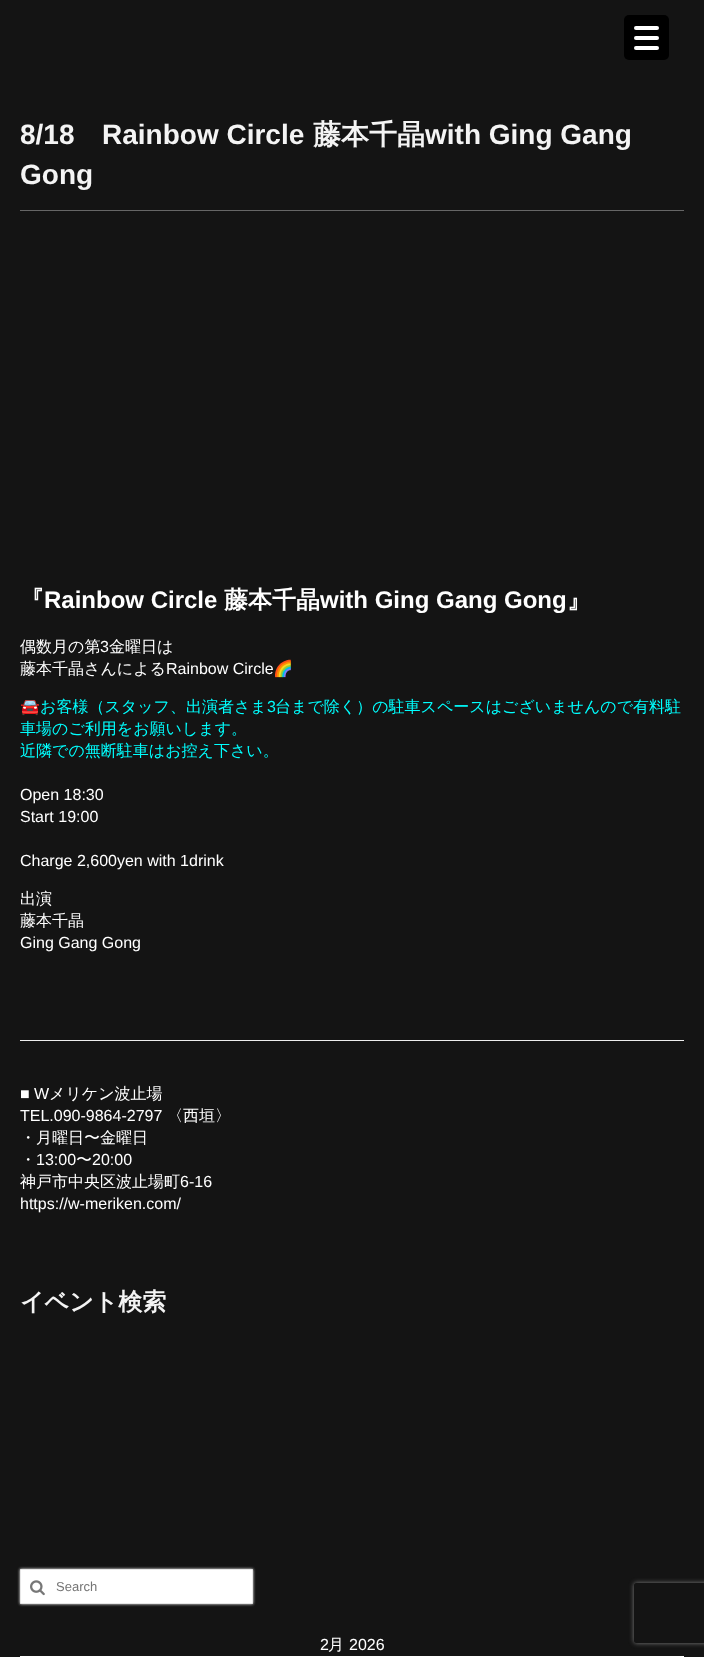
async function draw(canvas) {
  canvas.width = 704;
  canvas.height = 1657;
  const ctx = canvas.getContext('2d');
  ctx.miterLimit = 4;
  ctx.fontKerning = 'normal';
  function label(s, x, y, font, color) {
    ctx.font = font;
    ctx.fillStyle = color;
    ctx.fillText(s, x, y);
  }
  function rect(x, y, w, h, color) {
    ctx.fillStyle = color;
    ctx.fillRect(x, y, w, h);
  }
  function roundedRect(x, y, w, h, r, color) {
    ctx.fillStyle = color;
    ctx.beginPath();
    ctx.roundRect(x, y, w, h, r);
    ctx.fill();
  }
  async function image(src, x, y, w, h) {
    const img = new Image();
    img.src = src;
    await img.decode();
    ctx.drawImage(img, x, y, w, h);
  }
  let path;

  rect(0, 0, 704, 1657, '#141414');
  roundedRect(624, 15, 45, 45, 5, '#000');
  roundedRect(634, 36, 25, 4, 2, '#fff');
  roundedRect(634, 26, 25, 4, 2, '#fff');
  roundedRect(634, 46, 25, 4, 2, '#fff');
  rect(20, 210, 664, 1, '#666');
  label('8/18', 20, 144, 'bold 28px Liberation Sans', '#f4f4f4');
  label('Rainbow Circle', 102, 144, 'bold 28px Liberation Sans', '#f4f4f4');
  label('藤本千晶', 313, 144, 'bold 28px WenQuanYi Zen Hei', '#f4f4f4');
  label('with Ging Gang', 425, 144, 'bold 28px Liberation Sans', '#f4f4f4');
  label('Gong', 20, 184, 'bold 28px Liberation Sans', '#f4f4f4');
  label('『', 20, 608, 'bold 24px WenQuanYi Zen Hei', '#fff');
  label('Rainbow Circle', 44, 608, 'bold 24px Liberation Sans', '#fff');
  label('藤本千晶', 224, 608, 'bold 24px WenQuanYi Zen Hei', '#fff');
  label('with Ging Gang Gong', 320, 608, 'bold 24px Liberation Sans', '#fff');
  label('』', 567, 608, 'bold 24px WenQuanYi Zen Hei', '#fff');
  label('偶数月の第', 20, 652, '500 16px WenQuanYi Zen Hei', '#fff');
  label('3', 100, 652, '16px Liberation Sans', '#fff');
  label('金曜日は', 109, 652, '500 16px WenQuanYi Zen Hei', '#fff');
  label('藤本千晶さんによる', 20, 674, '500 16px WenQuanYi Zen Hei', '#fff');
  label('Rainbow Circle', 166, 674, '16px Liberation Sans', '#fff');
  label('🌈', 273, 674, '16px Noto Color Emoji', '#fff');
  label('🚘', 20, 712, '16px Noto Color Emoji', '#0ff');
  label('お客様（スタッフ、出演者さま', 40, 712, '500 16px WenQuanYi Zen Hei', '#0ff');
  label('3', 267, 712, '16px Liberation Sans', '#0ff');
  label('台まで除く）の駐車スペースはございませんので有料駐', 275, 712, '500 16px WenQuanYi Zen Hei', '#0ff');
  label('車場のご利用をお願いします。', 20, 734, '500 16px WenQuanYi Zen Hei', '#0ff');
  label('近隣での無断駐車はお控え下さい。', 20, 756, '500 16px WenQuanYi Zen Hei', '#0ff');
  label('Open 18:30', 20, 800, '16px Liberation Sans', '#fff');
  label('Start 19:00', 20, 822, '16px Liberation Sans', '#fff');
  label('Charge 2,600yen with 1drink', 20, 866, '16px Liberation Sans', '#fff');
  label('出演', 20, 904, '500 16px WenQuanYi Zen Hei', '#fff');
  label('藤本千晶', 20, 926, '500 16px WenQuanYi Zen Hei', '#fff');
  label('Ging Gang Gong', 20, 948, '16px Liberation Sans', '#fff');
  rect(20, 1040, 664, 1, '#eee');
  label('■ W', 20, 1099, '16px Liberation Sans', '#fff');
  label('メリケン波止場', 49, 1099, '500 16px WenQuanYi Zen Hei', '#fff');
  label('TEL.090-9864-2797', 20, 1121, '16px Liberation Sans', '#fff');
  label('〈西垣〉', 167, 1121, '500 16px WenQuanYi Zen Hei', '#fff');
  label('・月曜日〜金曜日', 20, 1143, '500 16px WenQuanYi Zen Hei', '#fff');
  label('・', 20, 1165, '500 16px WenQuanYi Zen Hei', '#fff');
  label('13:00', 36, 1165, '16px Liberation Sans', '#fff');
  label('〜', 76, 1165, '500 16px WenQuanYi Zen Hei', '#fff');
  label('20:00', 92, 1165, '16px Liberation Sans', '#fff');
  label('神戸市中央区波止場町', 20, 1187, '500 16px WenQuanYi Zen Hei', '#fff');
  label('6-16', 180, 1187, '16px Liberation Sans', '#fff');
  label('https://w-meriken.com/', 20, 1209, '16px Liberation Sans', '#fff');
  label('イベント検索', 20, 1310, 'bold 24px WenQuanYi Zen Hei', '#f4f4f4');
  ctx.fillStyle = '#fff';
  ctx.filter = 'blur(1.5px)';
  ctx.beginPath();
  ctx.rect(20, 1569, 233, 35);
  ctx.fill();
  ctx.filter = 'none';
  ctx.beginPath();
  ctx.rect(20.5, 1569.5, 232, 34);
  ctx.fill();
  ctx.strokeStyle = '#e7e7e7';
  ctx.stroke();
  await image('assets/img1.png', 30, 1580, 15, 16);
  label('Search', 56, 1591, '13px Liberation Sans', '#757575');
  label('2', 320, 1650, '16px Liberation Sans', '#fff');
  label('月', 328, 1650, '500 16px WenQuanYi Zen Hei', '#fff');
  label('2026', 349, 1650, '16px Liberation Sans', '#fff');
  rect(20, 1656, 664, 1, '#fff');
  ctx.save();
  path = new Path2D('M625 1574H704V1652H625ZM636 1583H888C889 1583 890 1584 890 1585V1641C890 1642 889 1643 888 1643H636C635 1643 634 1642 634 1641V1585C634 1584 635 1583 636 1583Z');
  ctx.clip(path, 'evenodd');
  ctx.fillStyle = '#808080';
  ctx.filter = 'blur(2.5px)';
  ctx.beginPath();
  ctx.roundRect(634, 1583, 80, 60, 2);
  ctx.fill();
  ctx.filter = 'none';
  ctx.restore();
}

draw(document.querySelector('canvas'));
